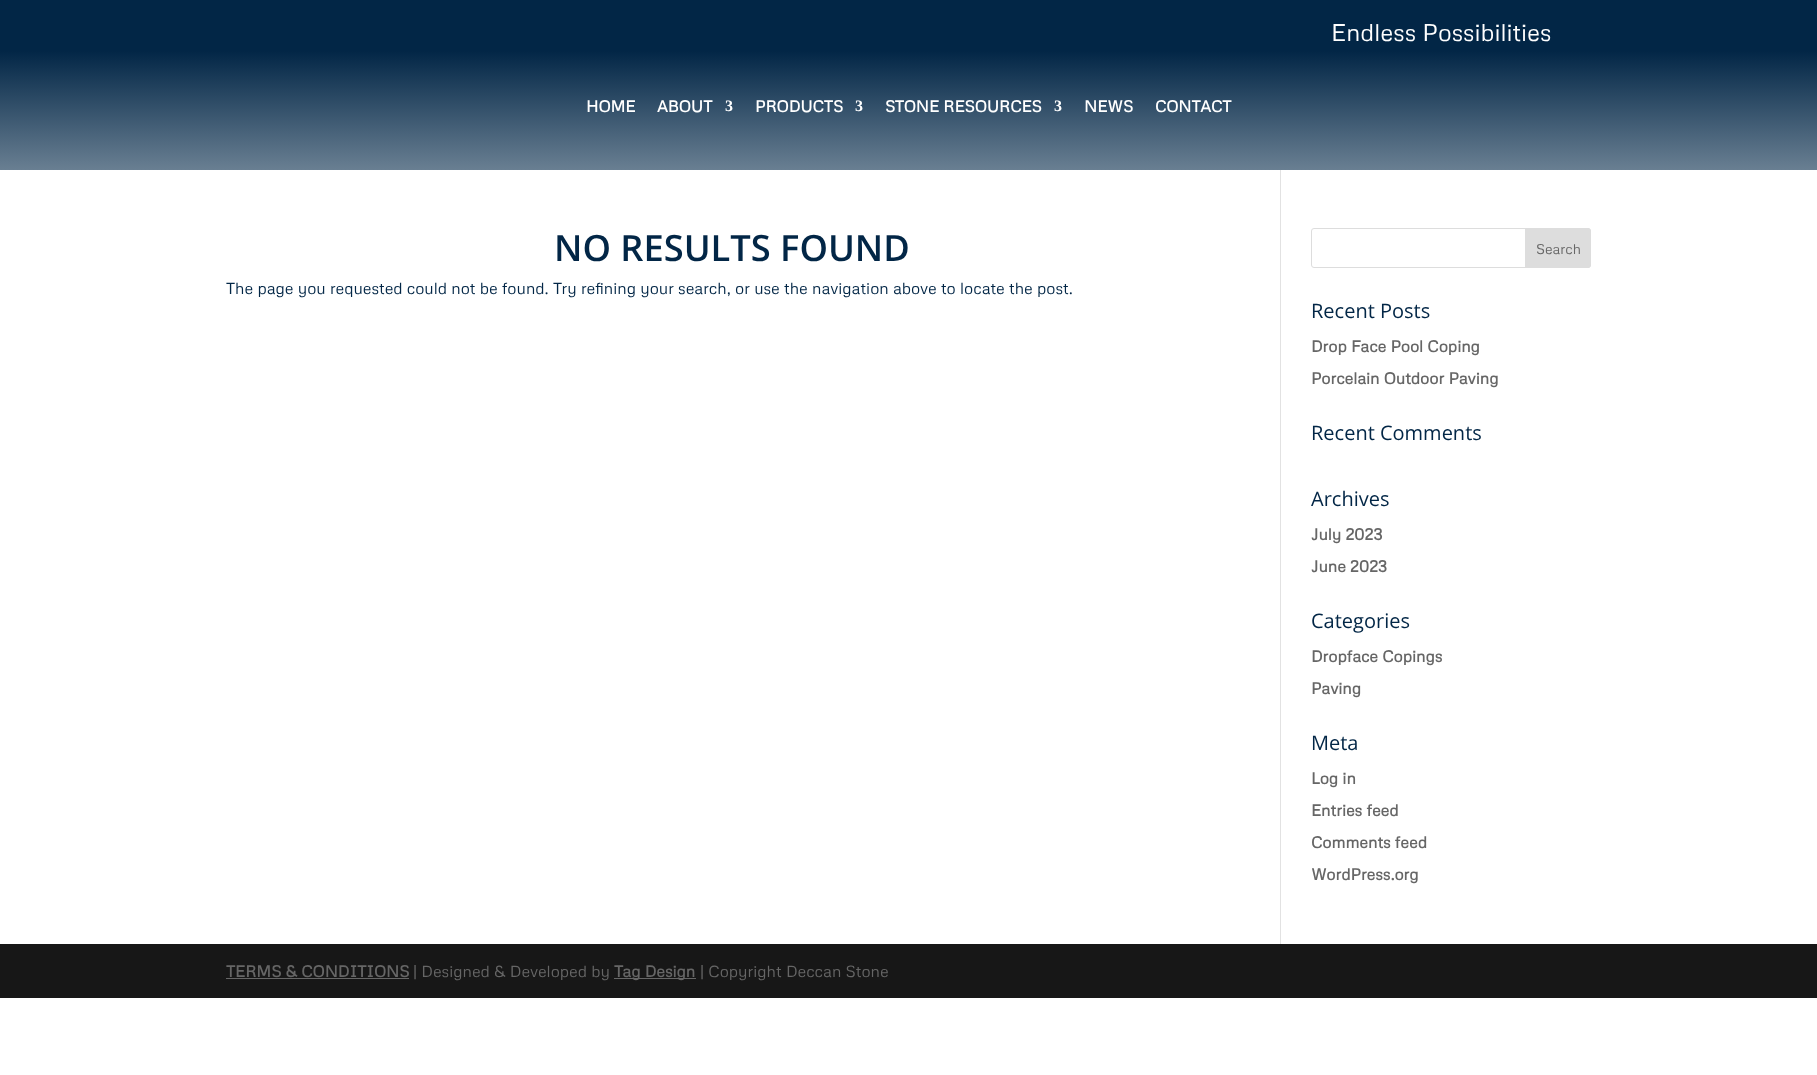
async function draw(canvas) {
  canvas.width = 1817;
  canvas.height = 1075;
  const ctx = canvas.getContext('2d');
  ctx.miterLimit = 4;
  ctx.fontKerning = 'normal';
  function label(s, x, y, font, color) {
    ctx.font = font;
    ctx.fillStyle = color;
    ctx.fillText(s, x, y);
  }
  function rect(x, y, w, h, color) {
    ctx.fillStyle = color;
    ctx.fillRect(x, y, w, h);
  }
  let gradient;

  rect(0, 0, 1817, 1075, '#fff');
  gradient = ctx.createLinearGradient(909, 0, 909, 170);
  gradient.addColorStop(0, '#022646');
  gradient.addColorStop(0.3, '#022646');
  gradient.addColorStop(1, '#697f92');
  ctx.fillStyle = gradient;
  ctx.fillRect(0, 0, 1817, 170);
  label('Endless Possibilities', 1331, 41, '24px Metrophobic', '#fff');
  label('HOME', 586, 112, 'bold 16px Metrophobic', '#fff');
  label('ABOUT', 657, 112, 'bold 16px Metrophobic', '#fff');
  label('3', 725, 111, 'bold 16px Liberation Serif', '#fff');
  label('PRODUCTS', 755, 112, 'bold 16px Metrophobic', '#fff');
  label('3', 855, 111, 'bold 16px Liberation Serif', '#fff');
  label('STONE RESOURCES', 885, 112, 'bold 16px Metrophobic', '#fff');
  label('3', 1054, 111, 'bold 16px Liberation Serif', '#fff');
  label('NEWS', 1084, 112, 'bold 16px Metrophobic', '#fff');
  label('CONTACT', 1155, 112, 'bold 16px Metrophobic', '#fff');
  rect(1280, 170, 1, 774, '#e2e2e2');
  label('NO RESULTS FOUND', 554, 261, '600 36.25px Open Sans', '#022646');
  label('The page you requested could not be found. Try refining your search, or use the navigation above to locate the post.', 226, 294, '16px Metrophobic', '#022646');
  ctx.beginPath();
  ctx.roundRect(1311.5, 228.5, 279, 39, 2.5);
  ctx.strokeStyle = '#ddd';
  ctx.stroke();
  ctx.fillStyle = '#ddd';
  ctx.beginPath();
  ctx.roundRect(1525.5, 228.5, 65, 39, [0, 2.5, 2.5, 0]);
  ctx.fill();
  ctx.stroke();
  label('Search', 1536, 254, '14px Metrophobic', '#666');
  label('Recent Posts', 1311, 318, '20px Open Sans', '#022646');
  label('Drop Face Pool Coping', 1311, 352, 'bold 16px Metrophobic', '#666');
  label('Porcelain Outdoor Paving', 1311, 384, 'bold 16px Metrophobic', '#666');
  label('Recent Comments', 1311, 440, '20px Open Sans', '#022646');
  label('Archives', 1311, 506, '20px Open Sans', '#022646');
  label('July 2023', 1311, 540, 'bold 16px Metrophobic', '#666');
  label('June 2023', 1311, 572, 'bold 16px Metrophobic', '#666');
  label('Categories', 1311, 628, '20px Open Sans', '#022646');
  label('Dropface Copings', 1311, 662, 'bold 16px Metrophobic', '#666');
  label('Paving', 1311, 694, 'bold 16px Metrophobic', '#666');
  label('Meta', 1311, 750, '20px Open Sans', '#022646');
  label('Log in', 1311, 784, 'bold 16px Metrophobic', '#666');
  label('Entries feed', 1311, 816, 'bold 16px Metrophobic', '#666');
  label('Comments feed', 1311, 848, 'bold 16px Metrophobic', '#666');
  label('WordPress.org', 1311, 880, 'bold 16px Metrophobic', '#666');
  rect(0, 944, 1817, 54, '#171717');
  label('TERMS & CONDITIONS', 226, 977, 'bold 16px Metrophobic', '#666');
  rect(226, 978, 183, 1, '#666');
  label('| Designed & Developed by', 413, 977, '16px Metrophobic', '#666');
  rect(614, 978, 82, 1, '#666');
  label('Tag Design', 614, 977, 'bold 16px Metrophobic', '#666');
  label('| Copyright Deccan Stone', 700, 977, '16px Metrophobic', '#666');
}

draw(document.querySelector('canvas'));
